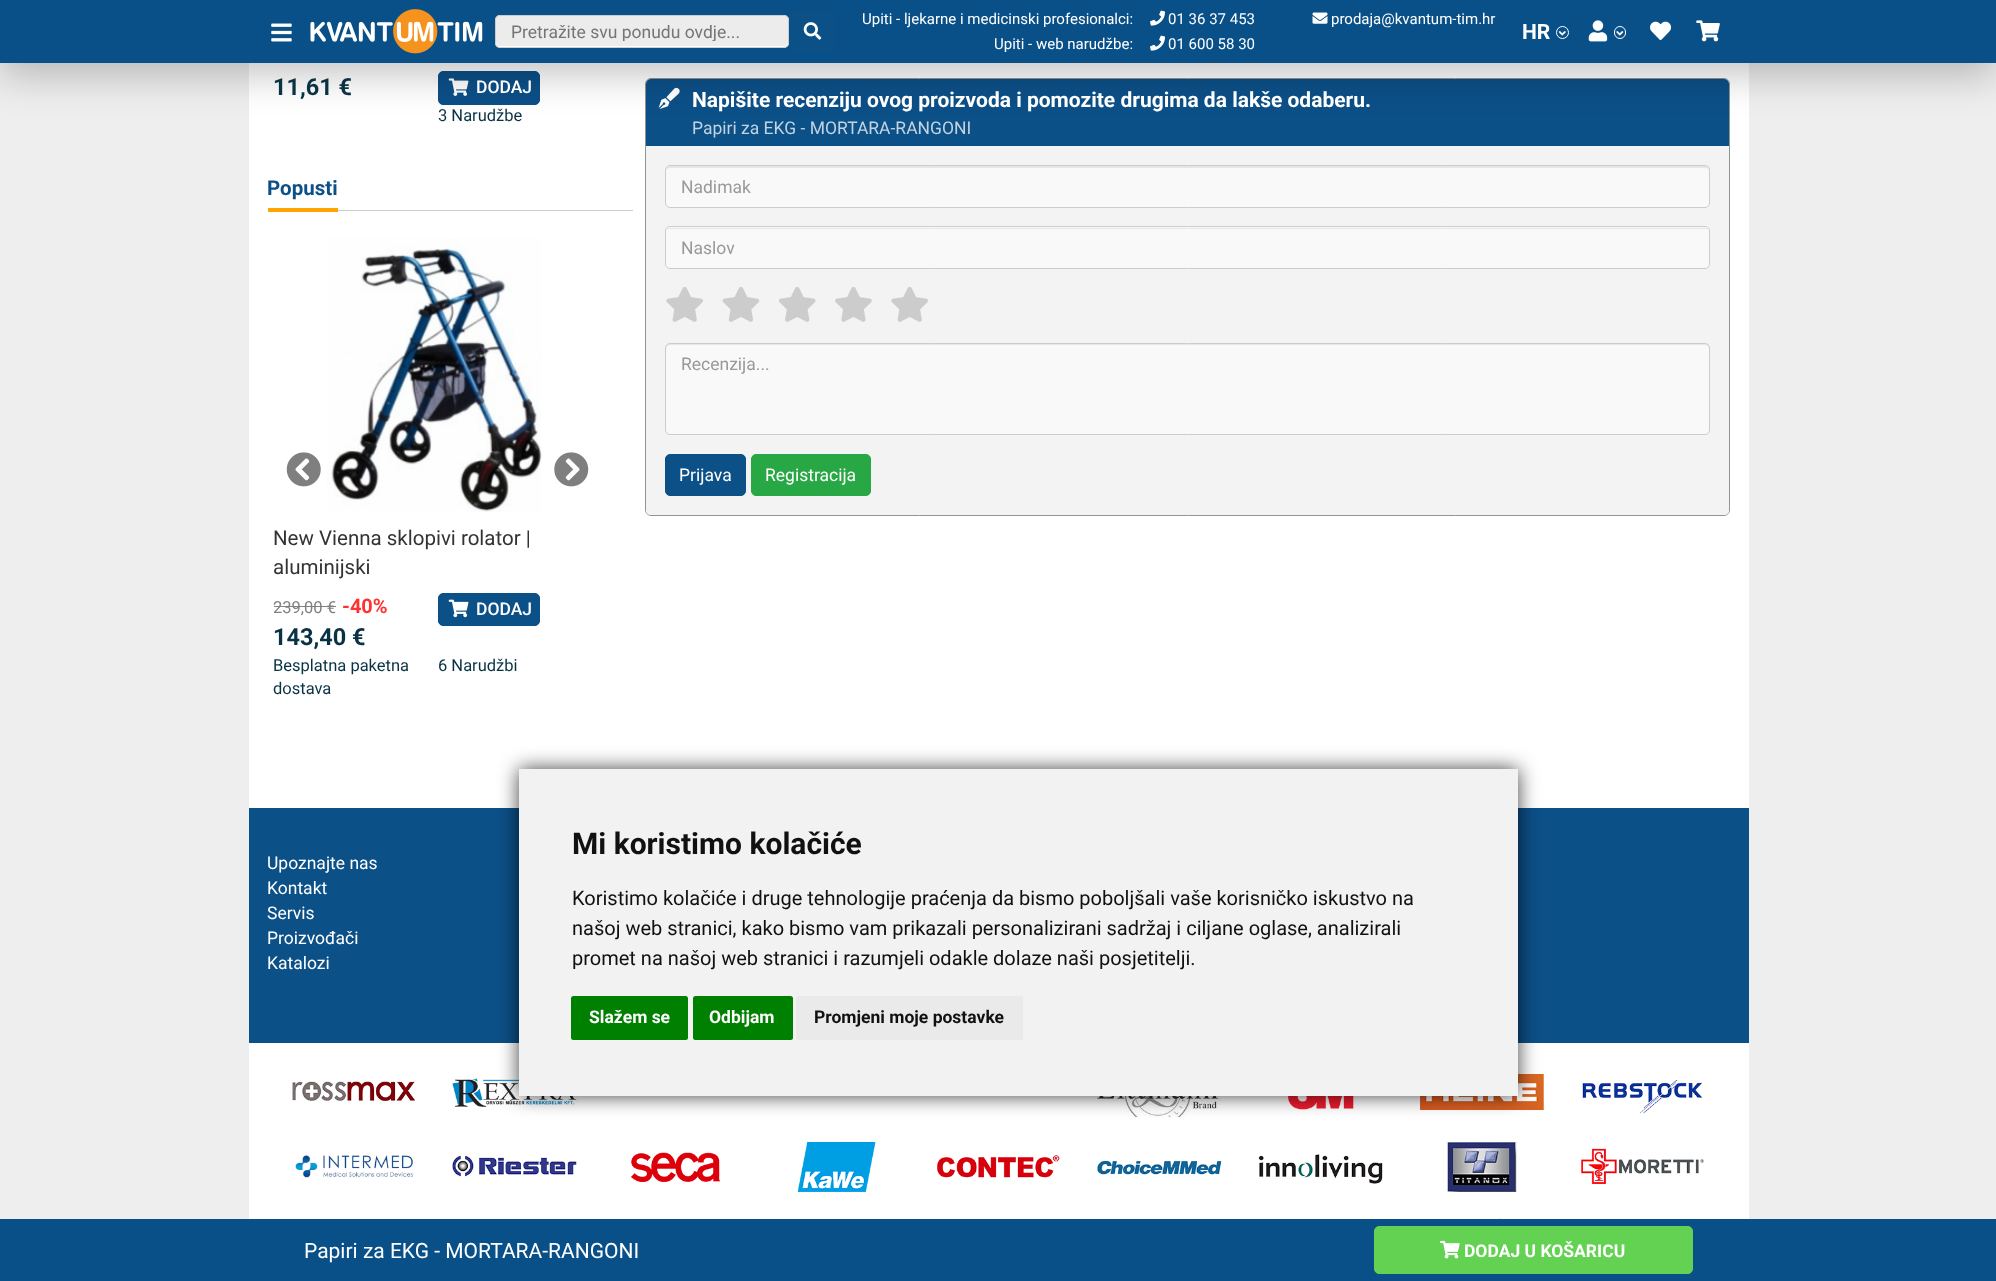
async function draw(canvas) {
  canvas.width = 1996;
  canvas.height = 1281;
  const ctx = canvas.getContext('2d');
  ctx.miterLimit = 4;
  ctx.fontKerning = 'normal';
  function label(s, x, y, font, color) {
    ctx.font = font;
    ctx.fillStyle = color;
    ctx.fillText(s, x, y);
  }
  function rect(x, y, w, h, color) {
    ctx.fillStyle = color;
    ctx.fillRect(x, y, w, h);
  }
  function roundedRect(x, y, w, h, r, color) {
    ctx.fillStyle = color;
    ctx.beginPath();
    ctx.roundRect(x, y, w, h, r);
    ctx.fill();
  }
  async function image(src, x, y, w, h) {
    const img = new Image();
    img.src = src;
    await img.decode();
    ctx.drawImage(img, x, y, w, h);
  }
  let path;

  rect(0, 0, 1996, 1281, '#eee');
  rect(249, 63, 1500, 1156, '#fff');
  ctx.fillStyle = '#0c5088';
  ctx.beginPath();
  ctx.roundRect(438.5, 71.5, 101, 33, 4.5);
  ctx.fill();
  ctx.strokeStyle = '#0c5088';
  ctx.stroke();
  await image('assets/img11.png', 448, 78, 21, 18);
  ctx.beginPath();
  ctx.roundRect(645.5, 78.5, 1084, 437, 5.5);
  ctx.strokeStyle = '#909793';
  ctx.stroke();
  ctx.beginPath();
  ctx.roundRect(646, 79, 1083, 67, [5, 5, 0, 0]);
  ctx.fill();
  await image('assets/img16.png', 658, 87, 22, 22);
  ctx.fillStyle = '#0000003b';
  ctx.filter = 'blur(19px)';
  ctx.beginPath();
  ctx.rect(0, 13, 1996, 62);
  ctx.fill();
  ctx.filter = 'none';
  rect(0, 0, 1996, 63, '#095088');
  await image('assets/img1.png', 271, 23, 21, 19);
  await image('assets/img2.png', 310, 9, 173, 45);
  roundedRect(495, 15, 294, 33, 5, '#fff');
  ctx.fillStyle = '#ececec';
  path = new Path2D('M500 16C498 16 496 18 496 20V42C496 44 498 46 500 46H784C786 46 788 44 788 42V20C788 18 786 16 784 16Z');
  ctx.fill(path);
  ctx.beginPath();
  ctx.roundRect(495.5, 15.5, 293, 32, 4.5);
  ctx.strokeStyle = '#ccc';
  ctx.stroke();
  ctx.save();
  ctx.beginPath();
  ctx.rect(511, 21, 257, 20);
  ctx.clip();
  label('Pretražite svu ponudu ovdje...', 511, 38, '17.5px Roboto', '#757575');
  ctx.restore();
  ctx.fillStyle = '#0c5088';
  ctx.beginPath();
  ctx.roundRect(789, 10, 46, 43, [5, 6, 6, 5]);
  ctx.fill();
  await image('assets/img3.png', 803, 22, 19, 18);
  label('Upiti - ljekarne i medicinski profesionalci:', 862, 24, '15px Roboto', '#fff');
  await image('assets/img4.png', 1150, 10, 15, 16);
  label('01 36 37 453', 1168, 24, '15px Roboto', '#fff');
  label('Upiti - web narudžbe:', 994, 49, '15px Roboto', '#fff');
  await image('assets/img4.png', 1150, 35, 15, 16);
  label('01 600 58 30', 1168, 49, '15px Roboto', '#fff');
  await image('assets/img5.png', 1312, 12, 16, 12);
  label('prodaja@kvantum-tim.hr', 1331, 24, '15px Roboto', '#fff');
  label('HR', 1522, 39, 'bold 21px Roboto', '#fff');
  ctx.beginPath();
  ctx.arc(1562.5, 32.5, 6, 0, 2 * Math.PI);
  ctx.strokeStyle = '#fff';
  ctx.stroke();
  await image('assets/img6.png', 1558, 31, 8, 5);
  await image('assets/img7.png', 1588, 20, 20, 22);
  ctx.beginPath();
  ctx.roundRect(1614.5, 26.5, 11, 12, 5.5);
  ctx.stroke();
  await image('assets/img8.png', 1616, 31, 8, 5);
  await image('assets/img9.png', 1650, 21, 21, 19);
  await image('assets/img10.png', 1696, 20, 24, 22);
  label('11,61 €', 273, 95, 'bold 23.5px Roboto', '#093244');
  label('DODAJ', 476, 93, '500 17.5px Roboto', '#fff');
  label('3 Narudžbe', 438, 121, '16.5px Roboto', '#093244');
  rect(338, 210, 295, 1, '#ccc');
  rect(268, 208, 70, 4, '#ffa500');
  label('Popusti', 267, 195, 'bold 20.5px Roboto', '#0c5088');
  await image('assets/img12.png', 286, 452, 35, 35);
  await image('assets/img13.png', 554, 452, 35, 35);
  await image('assets/img14.png', 327, 238, 215, 274);
  label('New Vienna sklopivi rolator |', 273, 545, '20.5px Roboto', '#333');
  label('aluminijski', 273, 574, '20.5px Roboto', '#333');
  label('239,00 €', 273, 613, '16.5px Roboto', '#808080');
  rect(274, 606, 62, 1, '#808080');
  label('-40%', 342, 613, 'bold 20px Roboto', '#ff3131');
  label('143,40 €', 273, 645, 'bold 23.5px Roboto', '#093244');
  ctx.fillStyle = '#0c5088';
  ctx.beginPath();
  ctx.roundRect(438.5, 593.5, 101, 32, 4.5);
  ctx.fill();
  ctx.strokeStyle = '#0c5088';
  ctx.stroke();
  await image('assets/img15.png', 448, 599, 21, 19);
  label('DODAJ', 476, 615, '500 17.5px Roboto', '#fff');
  label('Besplatna paketna', 273, 671, '16.5px Roboto', '#093244');
  label('dostava', 273, 694, '16.5px Roboto', '#093244');
  label('6 Narudžbi', 438, 671, '16.5px Roboto', '#093244');
  label('Napišite recenziju ovog proizvoda i pomozite drugima da lakše odaberu.', 692, 107, 'bold 21px Roboto', '#fff');
  label('Papiri za EKG - MORTARA-RANGONI', 692, 134, '17.5px Roboto', '#c2d3e1');
  ctx.fillStyle = '#f3f3f3';
  ctx.beginPath();
  ctx.roundRect(646, 146, 1083, 369, [0, 0, 5, 5]);
  ctx.fill();
  roundedRect(665, 165, 1045, 43, 5, '#f9f9f9');
  ctx.fillStyle = '#e6e6e6';
  path = new Path2D('M670 168H1705C1707 168 1709 169 1709 171C1709 168 1708 166 1705 166H670C667 166 666 168 666 171C666 169 668 168 670 168Z');
  ctx.fill(path);
  ctx.beginPath();
  ctx.roundRect(665.5, 165.5, 1044, 42, 4.5);
  ctx.strokeStyle = '#ccc';
  ctx.stroke();
  label('Nadimak', 681, 193, '17.5px Roboto', '#999');
  roundedRect(665, 226, 1045, 43, 5, '#f9f9f9');
  ctx.fillStyle = '#e6e6e6';
  path = new Path2D('M670 229H1705C1707 229 1709 230 1709 232C1709 230 1707 228 1705 228H670C668 228 666 230 666 232C666 230 668 229 670 229Z');
  ctx.fill(path);
  ctx.beginPath();
  ctx.roundRect(665.5, 226.5, 1044, 42, 4.5);
  ctx.stroke();
  label('Naslov', 681, 254, '17.5px Roboto', '#999');
  await image('assets/img17.png', 666, 287, 37, 35);
  await image('assets/img18.png', 722, 287, 38, 35);
  await image('assets/img19.png', 779, 287, 37, 35);
  await image('assets/img20.png', 835, 287, 37, 35);
  await image('assets/img17.png', 891, 287, 37, 35);
  roundedRect(665, 343, 1045, 92, 5, '#f9f9f9');
  ctx.fillStyle = '#e6e6e6';
  path = new Path2D('M670 345H1705C1707 345 1709 347 1709 349C1709 346 1708 344 1705 344H670C667 344 666 346 666 349C666 347 668 345 670 345Z');
  ctx.fill(path);
  ctx.beginPath();
  ctx.roundRect(665.5, 343.5, 1044, 91, 4.5);
  ctx.stroke();
  label('Recenzija...', 681, 370, '17.5px Roboto', '#999');
  ctx.fillStyle = '#0c5088';
  ctx.beginPath();
  ctx.roundRect(665.5, 454.5, 80, 41, 4.5);
  ctx.fill();
  ctx.strokeStyle = '#0c5088';
  ctx.stroke();
  label('Prijava', 679, 481, '17.5px Roboto', '#fff');
  ctx.fillStyle = '#28a745';
  ctx.beginPath();
  ctx.roundRect(751.5, 454.5, 119, 41, 4.5);
  ctx.fill();
  ctx.strokeStyle = '#28a745';
  ctx.stroke();
  label('Registracija', 765, 481, '17.5px Roboto', '#fff');
  rect(0, 1219, 1996, 62, '#095088');
  label('Papiri za EKG - MORTARA-RANGONI', 304, 1258, '21px Roboto', '#fff');
  ctx.fillStyle = '#63d151';
  ctx.beginPath();
  ctx.roundRect(1374.5, 1226.5, 318, 47, 4.5);
  ctx.fill();
  ctx.strokeStyle = '#63d151';
  ctx.stroke();
  await image('assets/img21.png', 1440, 1240, 20, 19);
  label('DODAJ U KOŠARICU', 1464, 1257, 'bold 17.5px Roboto', '#fff');
  rect(249, 808, 1500, 235, '#0c5088');
  label('Upoznajte nas', 267, 869, '17.5px Roboto', '#fff');
  label('Kontakt', 267, 894, '17.5px Roboto', '#fff');
  label('Servis', 267, 919, '17.5px Roboto', '#fff');
  label('Proizvođači', 267, 944, '17.5px Roboto', '#fff');
  label('Katalozi', 267, 969, '17.5px Roboto', '#fff');
  await image('assets/img22.png', 292, 1081, 123, 21);
  await image('assets/img23.png', 452, 1078, 125, 29);
  await image('assets/img24.png', 1420, 1074, 124, 36);
  await image('assets/img25.png', 1582, 1080, 121, 34);
  await image('assets/img26.png', 1097, 1096, 125, 21);
  await image('assets/img27.png', 1288, 1096, 66, 14);
  await image('assets/img28.png', 295, 1155, 119, 23);
  await image('assets/img29.png', 452, 1155, 125, 22);
  await image('assets/img30.png', 631, 1152, 90, 30);
  await image('assets/img31.png', 797, 1142, 79, 50);
  await image('assets/img32.png', 937, 1155, 123, 23);
  await image('assets/img33.png', 1097, 1160, 125, 15);
  await image('assets/img34.png', 1258, 1154, 125, 30);
  await image('assets/img35.png', 1446, 1142, 72, 50);
  await image('assets/img36.png', 1581, 1148, 123, 36);
  await image('assets/img37.png', 1443, 1217, 79, 2);
  ctx.fillStyle = '#000000bf';
  ctx.filter = 'blur(10px)';
  ctx.beginPath();
  ctx.rect(519, 769, 999, 327);
  ctx.fill();
  ctx.filter = 'none';
  rect(519, 769, 999, 327, '#f2f2f2');
  label('Mi koristimo kolačiće', 572, 854, 'bold 30px Roboto', '#111');
  label('Koristimo kolačiće i druge tehnologije praćenja da bismo poboljšali vaše korisničko iskustvo na', 572, 905, '20px Roboto', '#111');
  label('našoj web stranici, kako bismo vam prikazali personalizirani sadržaj i ciljane oglase, analizirali', 572, 935, '20px Roboto', '#111');
  label('promet na našoj web stranici i razumjeli odakle dolaze naši posjetitelji.', 572, 965, '20px Roboto', '#111');
  roundedRect(571, 996, 117, 44, 2.5, '#008000');
  label('Slažem se', 589, 1023, 'bold 17.5px Roboto', '#fff');
  roundedRect(693, 996, 100, 44, 2.5, '#008000');
  label('Odbijam', 709, 1023, 'bold 17.5px Roboto', '#fff');
  roundedRect(796, 996, 227, 44, 2.5, '#eaeaea');
  label('Promjeni moje postavke', 814, 1023, 'bold 17.5px Roboto', '#111');
}

draw(document.querySelector('canvas'));
